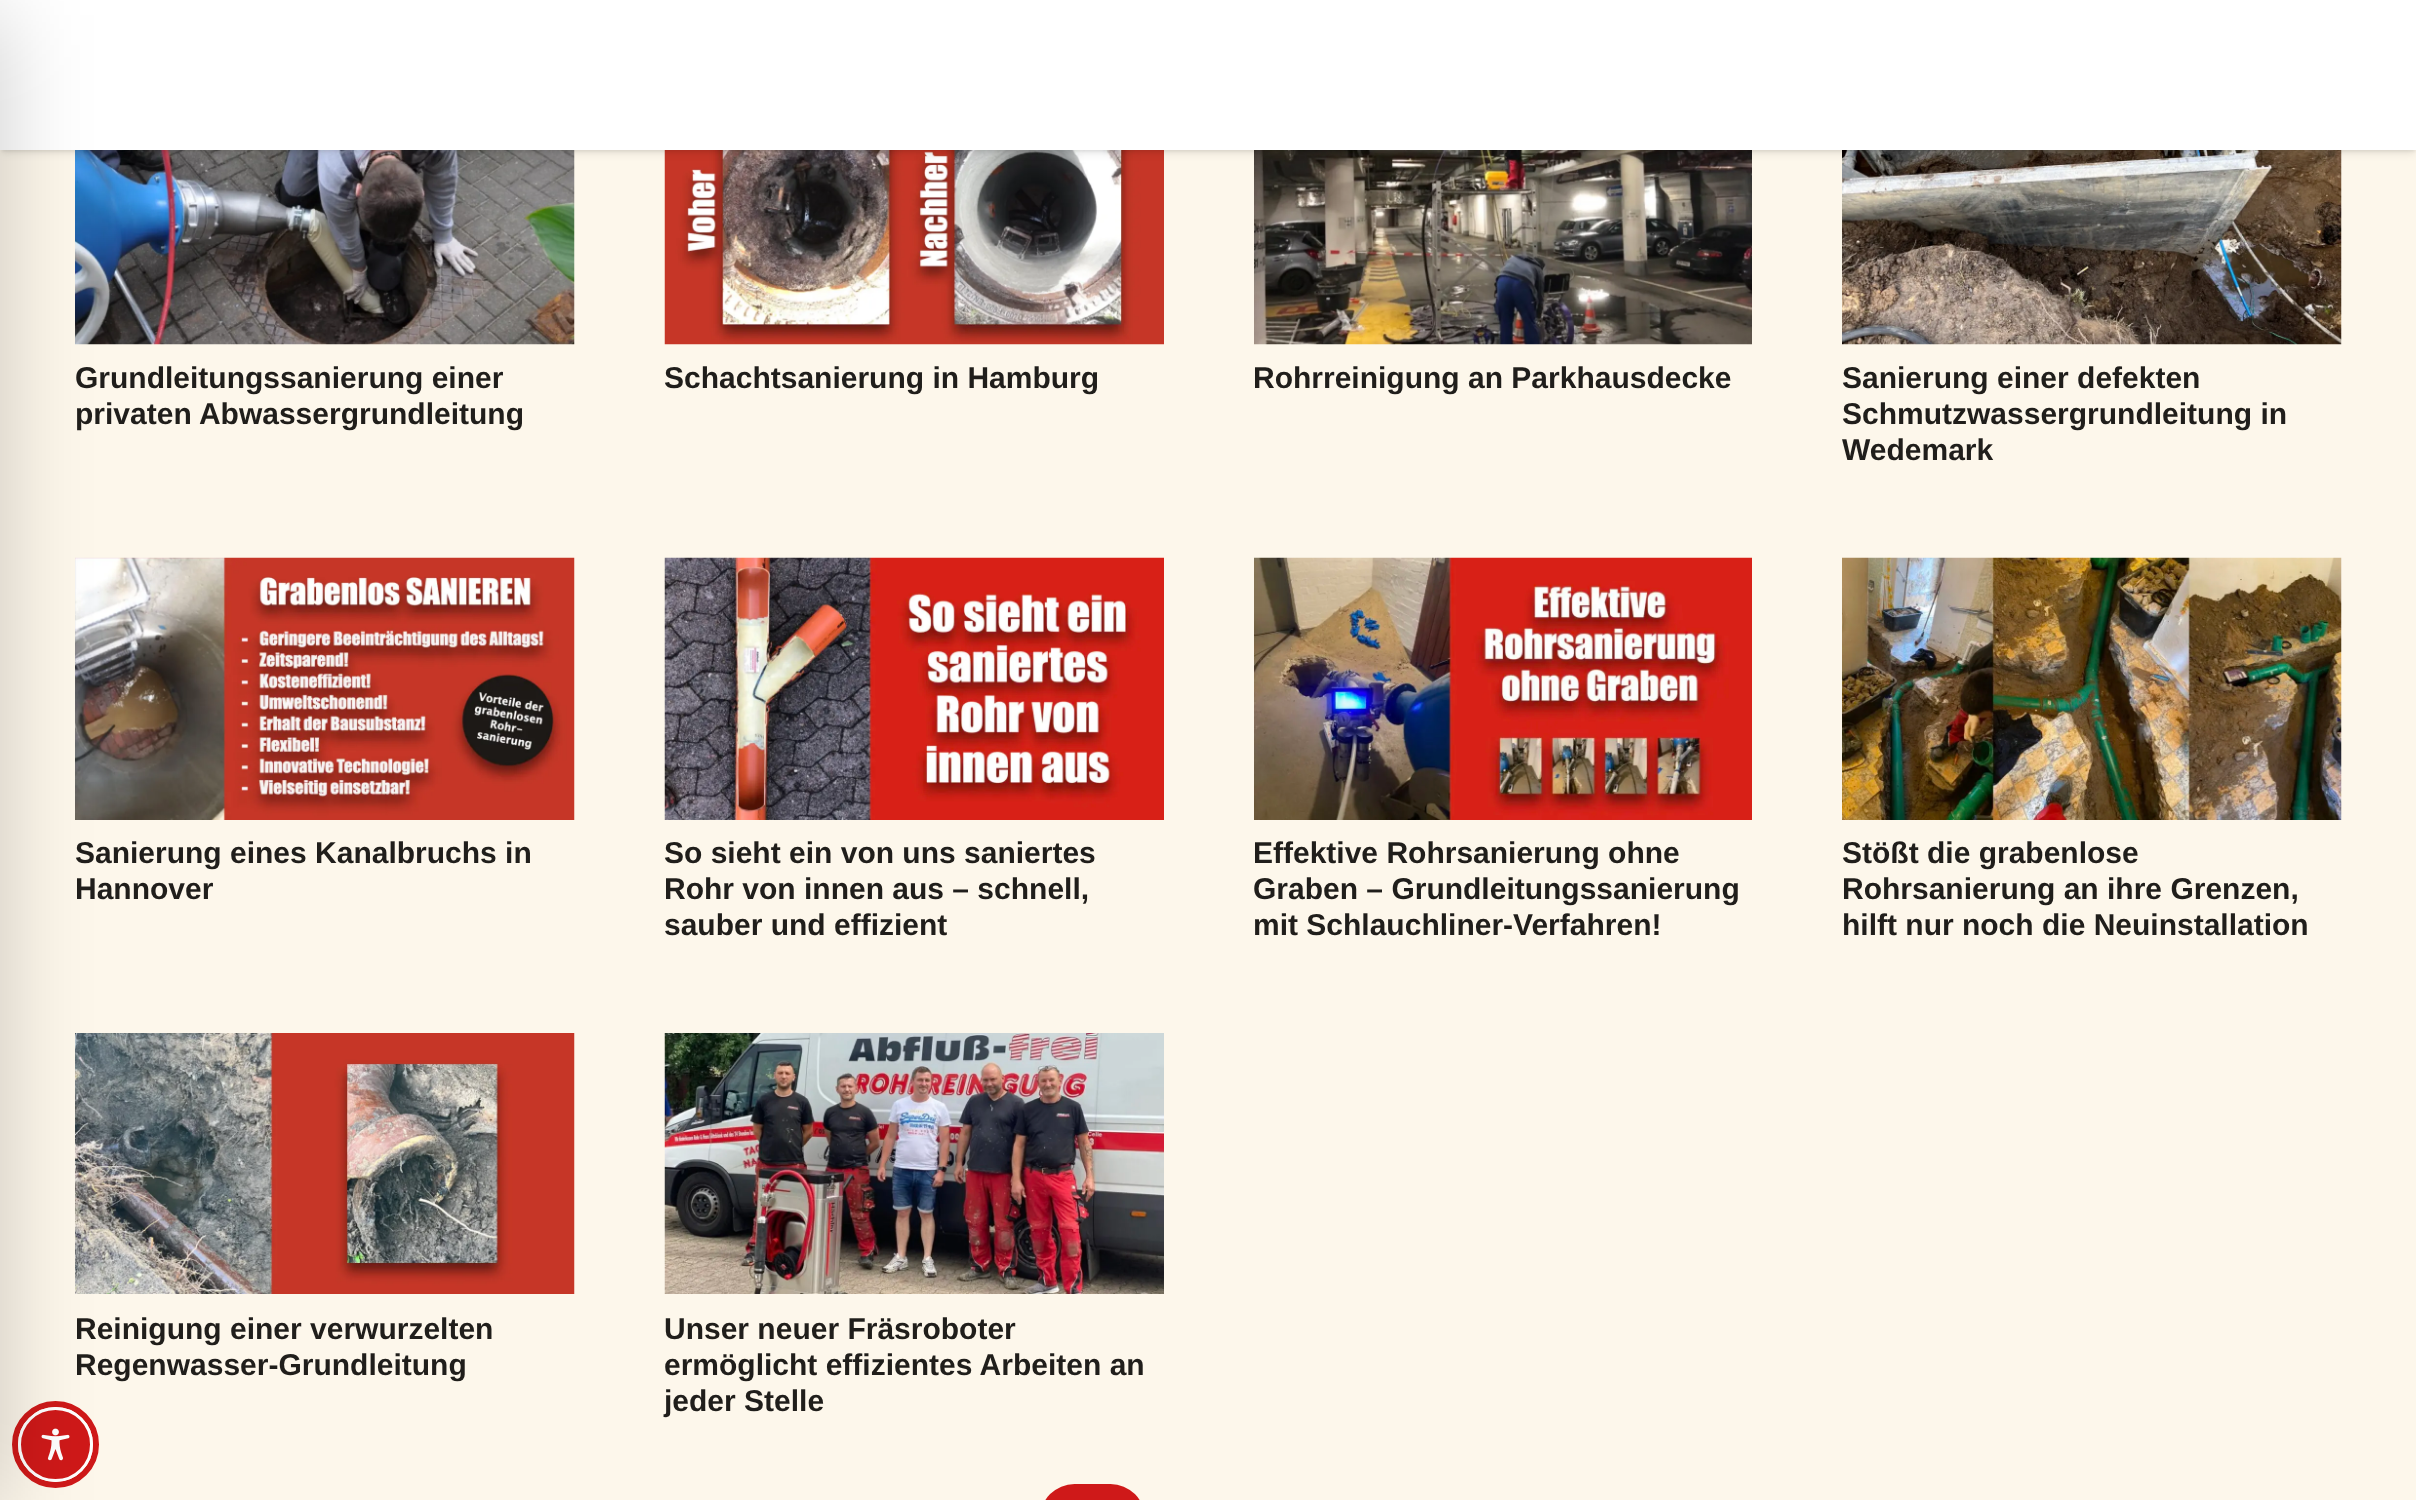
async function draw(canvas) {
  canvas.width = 2416;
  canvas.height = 1500;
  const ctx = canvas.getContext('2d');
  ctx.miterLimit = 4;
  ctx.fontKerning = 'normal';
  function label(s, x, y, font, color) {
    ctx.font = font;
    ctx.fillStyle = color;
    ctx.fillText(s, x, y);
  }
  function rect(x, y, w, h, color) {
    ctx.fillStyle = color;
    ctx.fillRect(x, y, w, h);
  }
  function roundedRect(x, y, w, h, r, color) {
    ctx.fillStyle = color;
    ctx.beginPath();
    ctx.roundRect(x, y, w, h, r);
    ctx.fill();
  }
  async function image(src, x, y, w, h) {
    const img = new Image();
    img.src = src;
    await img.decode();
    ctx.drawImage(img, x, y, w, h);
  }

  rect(0, 0, 2416, 1500, '#fdf7eb');
  await image('assets/img1.png', 75, 150, 500, 195);
  await image('assets/img2.png', 664, 150, 500, 195);
  await image('assets/img3.png', 1254, 150, 498, 195);
  await image('assets/img4.png', 1842, 150, 500, 195);
  ctx.fillStyle = '#0000000d';
  ctx.filter = 'blur(1px)';
  ctx.beginPath();
  ctx.rect(2, 5, 2413, 147);
  ctx.fill();
  ctx.filter = 'none';
  ctx.fillStyle = '#0000001a';
  ctx.filter = 'blur(4px)';
  ctx.beginPath();
  ctx.rect(2, 6, 2413, 147);
  ctx.fill();
  ctx.filter = 'none';
  rect(0, 0, 2416, 150, '#fff');
  await image('assets/img5.png', 75, 557, 500, 263);
  await image('assets/img9.png', 75, 1033, 500, 261);
  ctx.beginPath();
  ctx.arc(55.5, 1444.5, 40.5, 0, 2 * Math.PI);
  ctx.strokeStyle = '#cf1919';
  ctx.lineWidth = 6;
  ctx.stroke();
  ctx.fillStyle = '#cf1919';
  ctx.beginPath();
  ctx.arc(55.5, 1444.5, 36, 0, 2 * Math.PI);
  ctx.fill();
  ctx.strokeStyle = '#fff';
  ctx.lineWidth = 3;
  ctx.stroke();
  await image('assets/img11.png', 41, 1428, 29, 33);
  ctx.fillStyle = '#00000033';
  ctx.filter = 'blur(45px)';
  ctx.beginPath();
  ctx.rect(-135, 15, 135, 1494);
  ctx.fill();
  ctx.filter = 'none';
  label('Grundleitungssanierung einer', 75, 388, 'bold 30px Liberation Sans', '#201e1b');
  label('privaten Abwassergrundleitung', 75, 424, 'bold 30px Liberation Sans', '#201e1b');
  label('Schachtsanierung in Hamburg', 664, 388, 'bold 30px Liberation Sans', '#201e1b');
  label('Rohrreinigung an Parkhausdecke', 1253, 388, 'bold 30px Liberation Sans', '#201e1b');
  label('Sanierung einer defekten', 1842, 388, 'bold 30px Liberation Sans', '#201e1b');
  label('Schmutzwassergrundleitung in', 1842, 424, 'bold 30px Liberation Sans', '#201e1b');
  label('Wedemark', 1842, 460, 'bold 30px Liberation Sans', '#201e1b');
  label('Sanierung eines Kanalbruchs in', 75, 863, 'bold 30px Liberation Sans', '#201e1b');
  label('Hannover', 75, 899, 'bold 30px Liberation Sans', '#201e1b');
  await image('assets/img6.png', 664, 557, 500, 263);
  label('So sieht ein von uns saniertes', 664, 863, 'bold 30px Liberation Sans', '#201e1b');
  label('Rohr von innen aus – schnell,', 664, 899, 'bold 30px Liberation Sans', '#201e1b');
  label('sauber und effizient', 664, 935, 'bold 30px Liberation Sans', '#201e1b');
  await image('assets/img7.png', 1254, 557, 498, 263);
  label('Effektive Rohrsanierung ohne', 1253, 863, 'bold 30px Liberation Sans', '#201e1b');
  label('Graben – Grundleitungssanierung', 1253, 899, 'bold 30px Liberation Sans', '#201e1b');
  label('mit Schlauchliner-Verfahren!', 1253, 935, 'bold 30px Liberation Sans', '#201e1b');
  await image('assets/img8.png', 1842, 557, 500, 263);
  label('Stößt die grabenlose', 1842, 863, 'bold 30px Liberation Sans', '#201e1b');
  label('Rohrsanierung an ihre Grenzen,', 1842, 899, 'bold 30px Liberation Sans', '#201e1b');
  label('hilft nur noch die Neuinstallation', 1842, 935, 'bold 30px Liberation Sans', '#201e1b');
  label('Reinigung einer verwurzelten', 75, 1339, 'bold 30px Liberation Sans', '#201e1b');
  label('Regenwasser-Grundleitung', 75, 1375, 'bold 30px Liberation Sans', '#201e1b');
  await image('assets/img10.png', 664, 1033, 500, 261);
  label('Unser neuer Fräsroboter', 664, 1339, 'bold 30px Liberation Sans', '#201e1b');
  label('ermöglicht effizientes Arbeiten an', 664, 1375, 'bold 30px Liberation Sans', '#201e1b');
  label('jeder Stelle', 664, 1411, 'bold 30px Liberation Sans', '#201e1b');
  roundedRect(1040, 1484, 105, 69, 52.5, '#cf1919');
}

draw(document.querySelector('canvas'));
